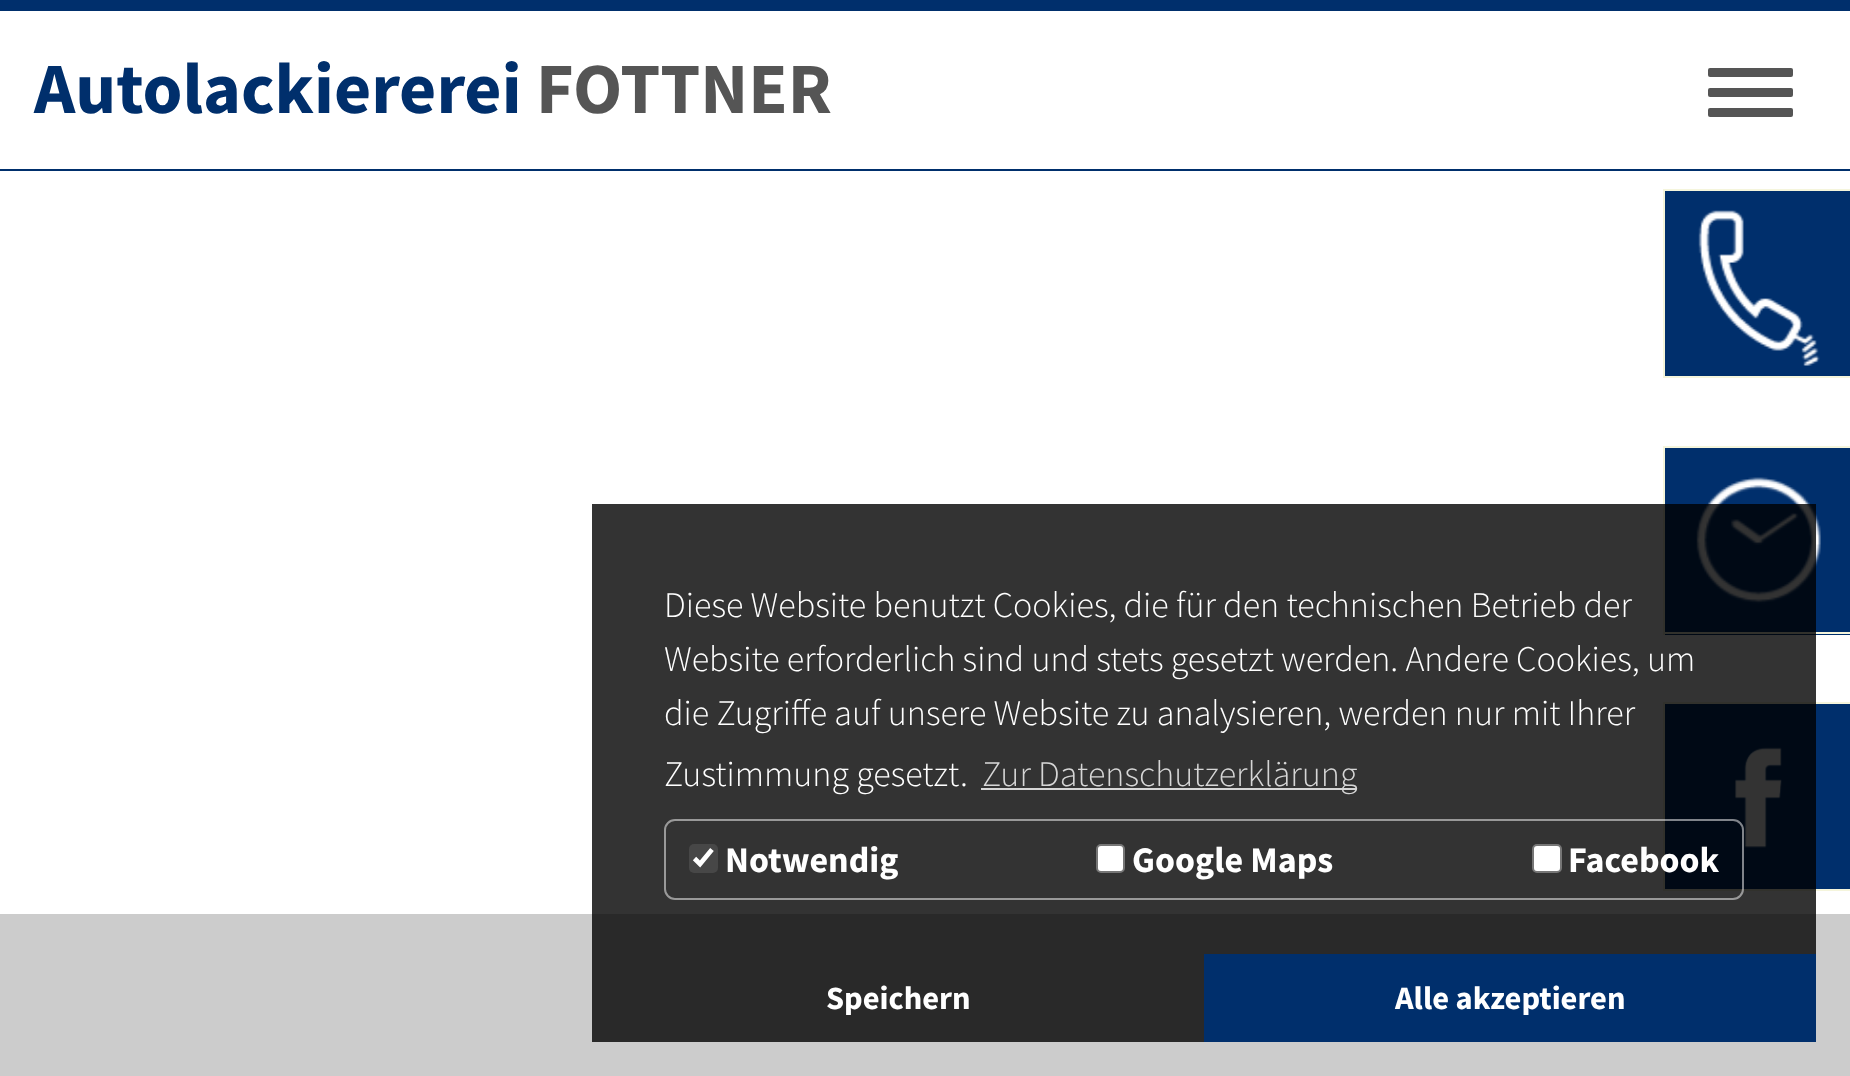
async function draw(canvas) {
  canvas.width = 1850;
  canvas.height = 1076;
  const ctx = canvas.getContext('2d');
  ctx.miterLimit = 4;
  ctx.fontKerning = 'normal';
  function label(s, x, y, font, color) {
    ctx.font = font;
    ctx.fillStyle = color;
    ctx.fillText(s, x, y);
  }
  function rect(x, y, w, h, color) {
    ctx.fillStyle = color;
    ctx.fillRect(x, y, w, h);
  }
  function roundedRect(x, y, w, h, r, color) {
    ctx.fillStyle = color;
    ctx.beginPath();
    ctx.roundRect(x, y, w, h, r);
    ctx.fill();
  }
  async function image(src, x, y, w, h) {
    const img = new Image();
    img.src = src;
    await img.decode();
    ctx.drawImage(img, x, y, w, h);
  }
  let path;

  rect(0, 0, 1850, 1076, '#fff');
  rect(0, 0, 1850, 11, '#002f6c');
  rect(0, 169, 1850, 2, '#002f6c');
  label('Autolackiererei', 34, 113, 'bold 72px Source Sans Pro', '#002f6c');
  label('FOTTNER', 536, 113, 'bold 72px Source Sans Pro', '#555');
  roundedRect(1708, 68, 85, 9, 2, '#555');
  roundedRect(1708, 88, 85, 9, 2, '#555');
  roundedRect(1708, 108, 85, 9, 2, '#555');
  rect(1665, 448, 185, 187, '#002f6c');
  await image('assets/img2.png', 1696, 477, 125, 127);
  rect(1663, 632, 187, 2, '#f5f5dc');
  rect(1663, 446, 187, 2, '#f5f5dc');
  rect(1663, 446, 2, 189, '#f5f5dc');
  rect(1665, 704, 185, 185, '#002f6c');
  await image('assets/img3.png', 1734, 747, 48, 101);
  rect(1663, 702, 187, 2, '#f5f5dc');
  rect(1663, 889, 187, 2, '#f5f5dc');
  rect(1663, 702, 2, 189, '#f5f5dc');
  rect(0, 914, 1850, 162, '#ccc');
  rect(592, 504, 1224, 538, '#000000cc');
  label('Diese Website benutzt Cookies, die für den technischen Betrieb der', 664, 617, '300 36px Source Sans Pro', '#fff');
  label('Website erforderlich sind und stets gesetzt werden. Andere Cookies, um', 664, 671, '300 36px Source Sans Pro', '#fff');
  label('die Zugriffe auf unsere Website zu analysieren, werden nur mit Ihrer', 664, 725, '300 36px Source Sans Pro', '#fff');
  label('Zustimmung gesetzt.', 664, 786, '300 36px Source Sans Pro', '#fff');
  rect(981, 788, 376, 2, '#d6d6d6');
  label('Zur Datenschutzerklärung', 982, 786, '300 36px Source Sans Pro', '#d6d6d6');
  ctx.beginPath();
  ctx.roundRect(665, 820, 1078, 79, 10);
  ctx.strokeStyle = '#ffffff80';
  ctx.lineWidth = 2;
  ctx.stroke();
  roundedRect(689, 844, 29, 29, 5, '#474747');
  path = new Path2D('M694.5 858.5L700 864L712 849.5');
  ctx.strokeStyle = '#fff';
  ctx.lineWidth = 4.7;
  ctx.stroke(path);
  label('Notwendig', 725, 872, 'bold 36px Source Sans Pro', '#fff');
  ctx.beginPath();
  ctx.roundRect(1097, 845, 27, 27, 4);
  ctx.fill();
  ctx.strokeStyle = '#767676';
  ctx.lineWidth = 2;
  ctx.stroke();
  label('Google Maps', 1132, 872, 'bold 36px Source Sans Pro', '#fff');
  ctx.beginPath();
  ctx.roundRect(1533, 845, 28, 27, 4);
  ctx.fill();
  ctx.stroke();
  label('Facebook', 1568, 872, 'bold 36px Source Sans Pro', '#fff');
  label('Speichern', 826, 1009, 'bold 32.5px Source Sans Pro', '#fff');
  rect(1204, 954, 612, 88, '#002f6c');
  label('Alle akzeptieren', 1395, 1009, 'bold 32.5px Source Sans Pro', '#fff');
  rect(1665, 191, 185, 185, '#002f6c');
  await image('assets/img1.png', 1698, 210, 122, 156);
  rect(1663, 189, 187, 2, '#f5f5dc');
  rect(1663, 376, 187, 2, '#f5f5dc');
  rect(1663, 189, 2, 189, '#f5f5dc');
}

draw(document.querySelector('canvas'));
